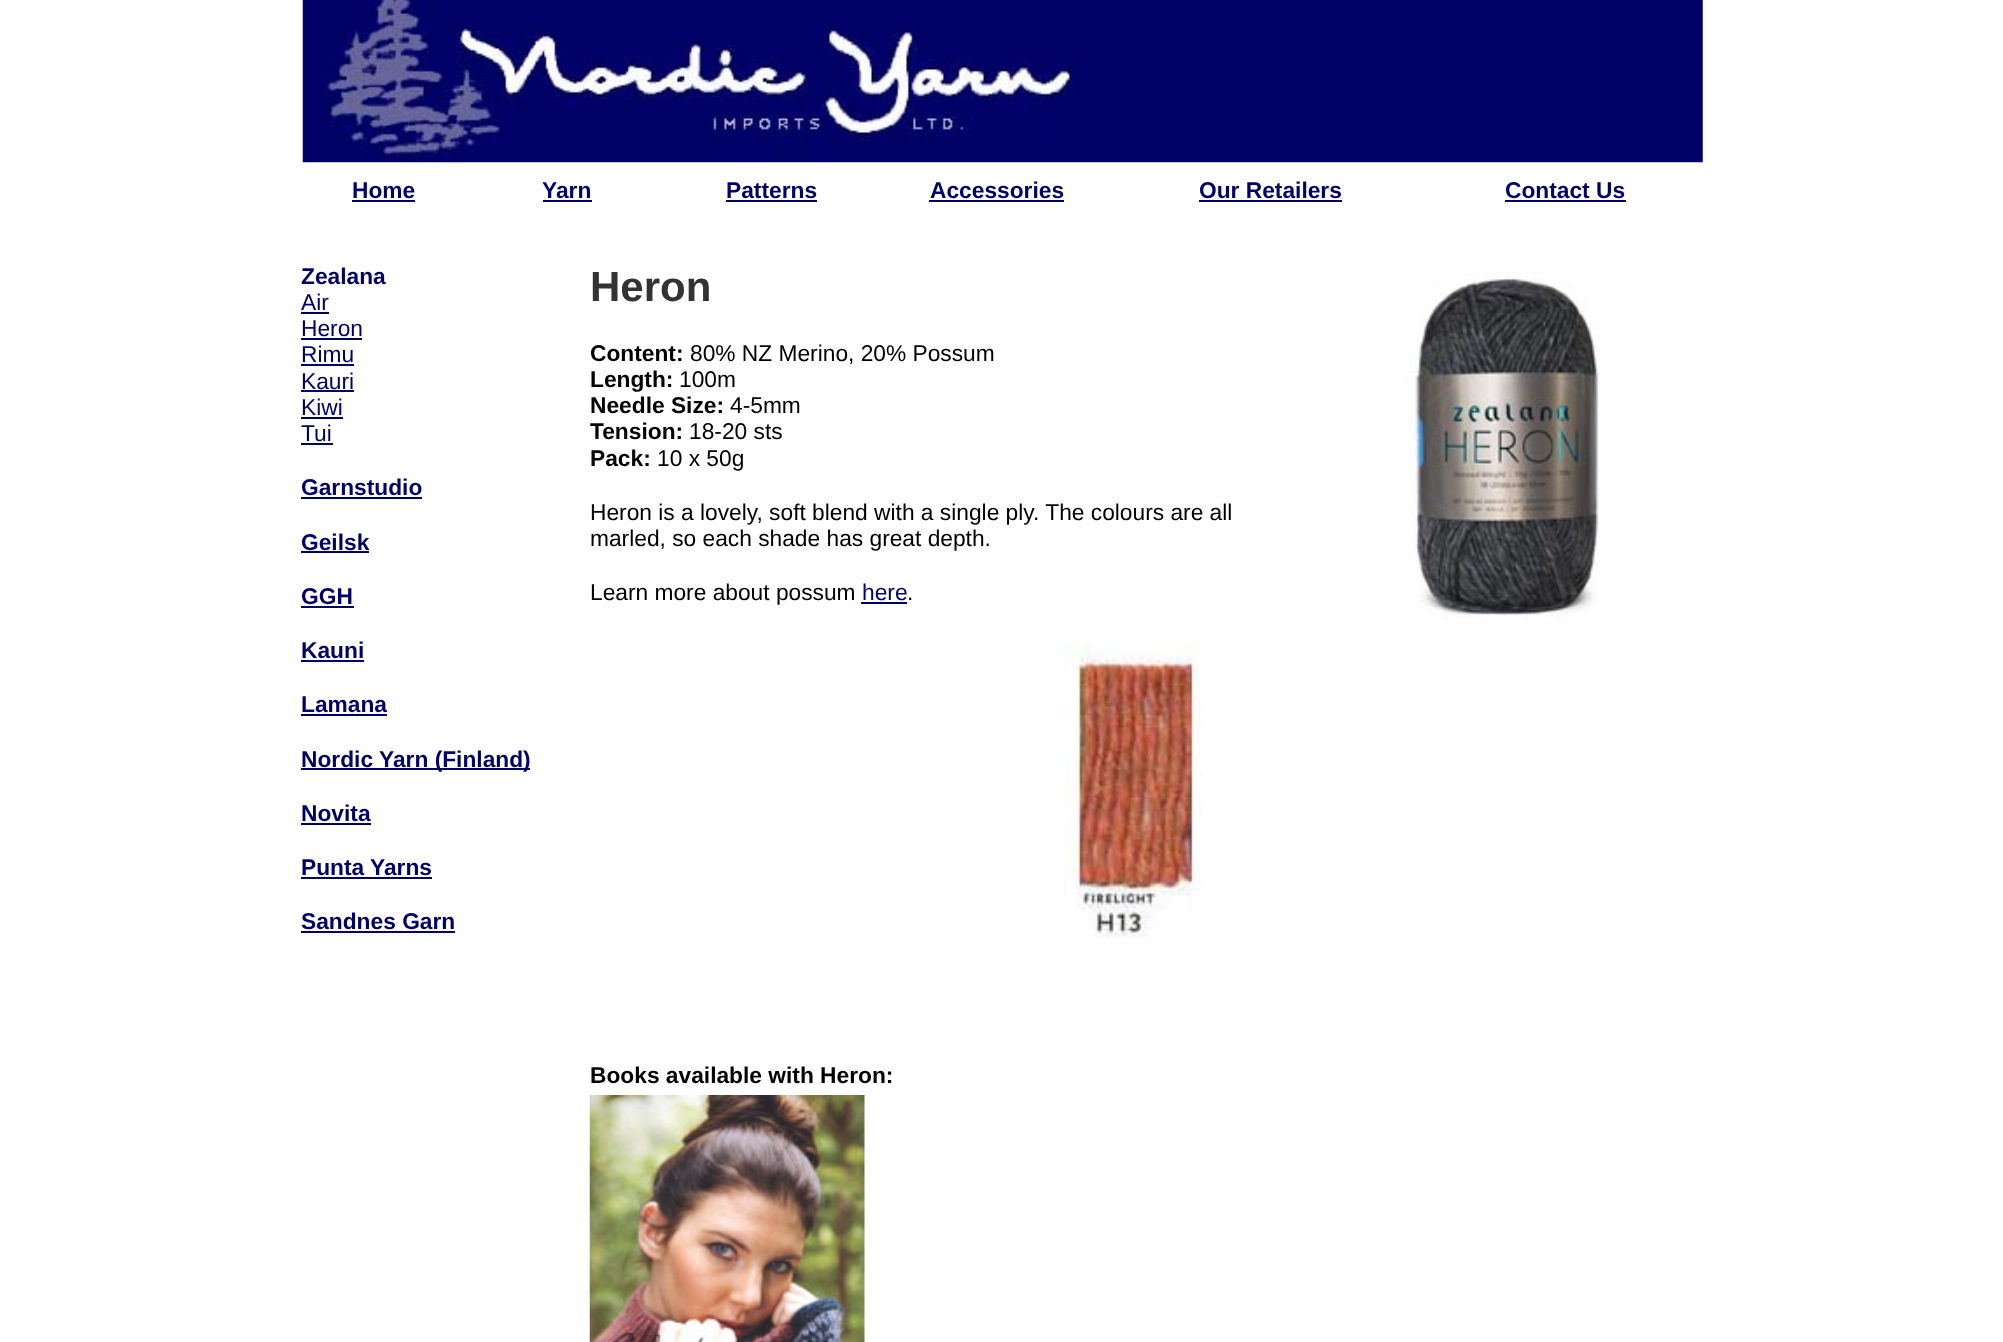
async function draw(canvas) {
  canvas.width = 2003;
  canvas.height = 1342;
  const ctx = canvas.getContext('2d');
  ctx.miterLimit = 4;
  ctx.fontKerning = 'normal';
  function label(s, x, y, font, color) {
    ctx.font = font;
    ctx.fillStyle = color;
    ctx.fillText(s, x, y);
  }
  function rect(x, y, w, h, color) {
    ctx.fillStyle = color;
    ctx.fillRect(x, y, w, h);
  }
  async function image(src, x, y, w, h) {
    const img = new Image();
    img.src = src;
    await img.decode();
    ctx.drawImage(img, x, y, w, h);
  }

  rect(0, 0, 2003, 1342, '#fff');
  await image('assets/img1.png', 302, 0, 1401, 163);
  label('Home', 352, 198, 'bold 22.75px Liberation Sans', '#006');
  rect(352, 200, 63, 2, '#006');
  label('Yarn', 542, 198, 'bold 22.75px Liberation Sans', '#006');
  rect(543, 200, 49, 2, '#006');
  label('Patterns', 726, 198, 'bold 22.75px Liberation Sans', '#006');
  rect(726, 200, 91, 2, '#006');
  label('Accessories', 930, 198, 'bold 22.75px Liberation Sans', '#006');
  rect(929, 200, 135, 2, '#006');
  label('Our Retailers', 1199, 198, 'bold 22.75px Liberation Sans', '#006');
  rect(1199, 200, 143, 2, '#006');
  label('Contact Us', 1505, 198, 'bold 22.75px Liberation Sans', '#006');
  rect(1505, 200, 121, 2, '#006');
  label('Zealana', 301, 284, 'bold 22.75px Liberation Sans', '#006');
  label('Air', 301, 310, '22.75px Liberation Sans', '#006');
  rect(301, 312, 28, 2, '#006');
  label('Heron', 301, 336, '22.75px Liberation Sans', '#006');
  rect(301, 338, 61, 2, '#006');
  label('Rimu', 301, 362, '22.75px Liberation Sans', '#006');
  rect(301, 364, 53, 2, '#006');
  label('Kauri', 301, 389, '22.75px Liberation Sans', '#006');
  rect(301, 390, 53, 2, '#006');
  label('Kiwi', 301, 415, '22.75px Liberation Sans', '#006');
  rect(301, 417, 42, 2, '#006');
  label('Tui', 301, 441, '22.75px Liberation Sans', '#006');
  rect(301, 443, 32, 2, '#006');
  label('Garnstudio', 301, 495, 'bold 22.75px Liberation Sans', '#006');
  rect(301, 497, 121, 2, '#006');
  label('Geilsk', 301, 550, 'bold 22.75px Liberation Sans', '#006');
  rect(301, 551, 68, 2, '#006');
  label('GGH', 301, 604, 'bold 22.75px Liberation Sans', '#006');
  rect(301, 606, 53, 2, '#006');
  label('Kauni', 301, 658, 'bold 22.75px Liberation Sans', '#006');
  rect(301, 660, 63, 2, '#006');
  label('Lamana', 301, 712, 'bold 22.75px Liberation Sans', '#006');
  rect(301, 714, 86, 2, '#006');
  label('Nordic', 301, 767, 'bold 22.75px Liberation Sans', '#006');
  rect(301, 768, 229, 2, '#006');
  label('Yarn (Finland)', 379, 767, 'bold 22.75px Liberation Sans', '#006');
  label('Novita', 301, 821, 'bold 22.75px Liberation Sans', '#006');
  rect(301, 823, 70, 2, '#006');
  label('Punta', 301, 875, 'bold 22.75px Liberation Sans', '#006');
  rect(301, 877, 131, 2, '#006');
  label('Yarns', 370, 875, 'bold 22.75px Liberation Sans', '#006');
  label('Sandnes Garn', 301, 929, 'bold 22.75px Liberation Sans', '#006');
  rect(301, 931, 154, 2, '#006');
  label('Heron', 590, 301, 'bold 42px Liberation Sans', '#333');
  label('Content:', 590, 361, 'bold 22.75px Liberation Sans', '#000');
  label('80% NZ Merino, 20% Possum', 690, 361, '22.75px Liberation Sans', '#000');
  label('Length:', 590, 387, 'bold 22.75px Liberation Sans', '#000');
  label('100m', 679, 387, '22.75px Liberation Sans', '#000');
  label('Needle Size:', 590, 413, 'bold 22.75px Liberation Sans', '#000');
  label('4-5mm', 730, 413, '22.75px Liberation Sans', '#000');
  label('Tension:', 590, 439, 'bold 22.75px Liberation Sans', '#000');
  label('18-20 sts', 689, 439, '22.75px Liberation Sans', '#000');
  label('Pack:', 590, 466, 'bold 22.75px Liberation Sans', '#000');
  label('10 x 50g', 657, 466, '22.75px Liberation Sans', '#000');
  label('Heron is a lovely, soft blend with a single ply. The colours are all', 590, 520, '22.75px Liberation Sans', '#000');
  label('marled, so each shade has great depth.', 590, 546, '22.75px Liberation Sans', '#000');
  label('Learn more about possum', 590, 600, '22.75px Liberation Sans', '#000');
  label('here', 862, 600, '22.75px Liberation Sans', '#006');
  label('.', 907, 600, '22.75px Liberation Sans', '#000');
  rect(861, 602, 46, 2, '#006');
  await image('assets/img2.png', 1405, 271, 196, 348);
  await image('assets/img3.png', 1063, 643, 139, 295);
  label('Books available with Heron:', 590, 1083, 'bold 22.75px Liberation Sans', '#000');
  await image('assets/img4.png', 589, 1095, 276, 247);
}

draw(document.querySelector('canvas'));
